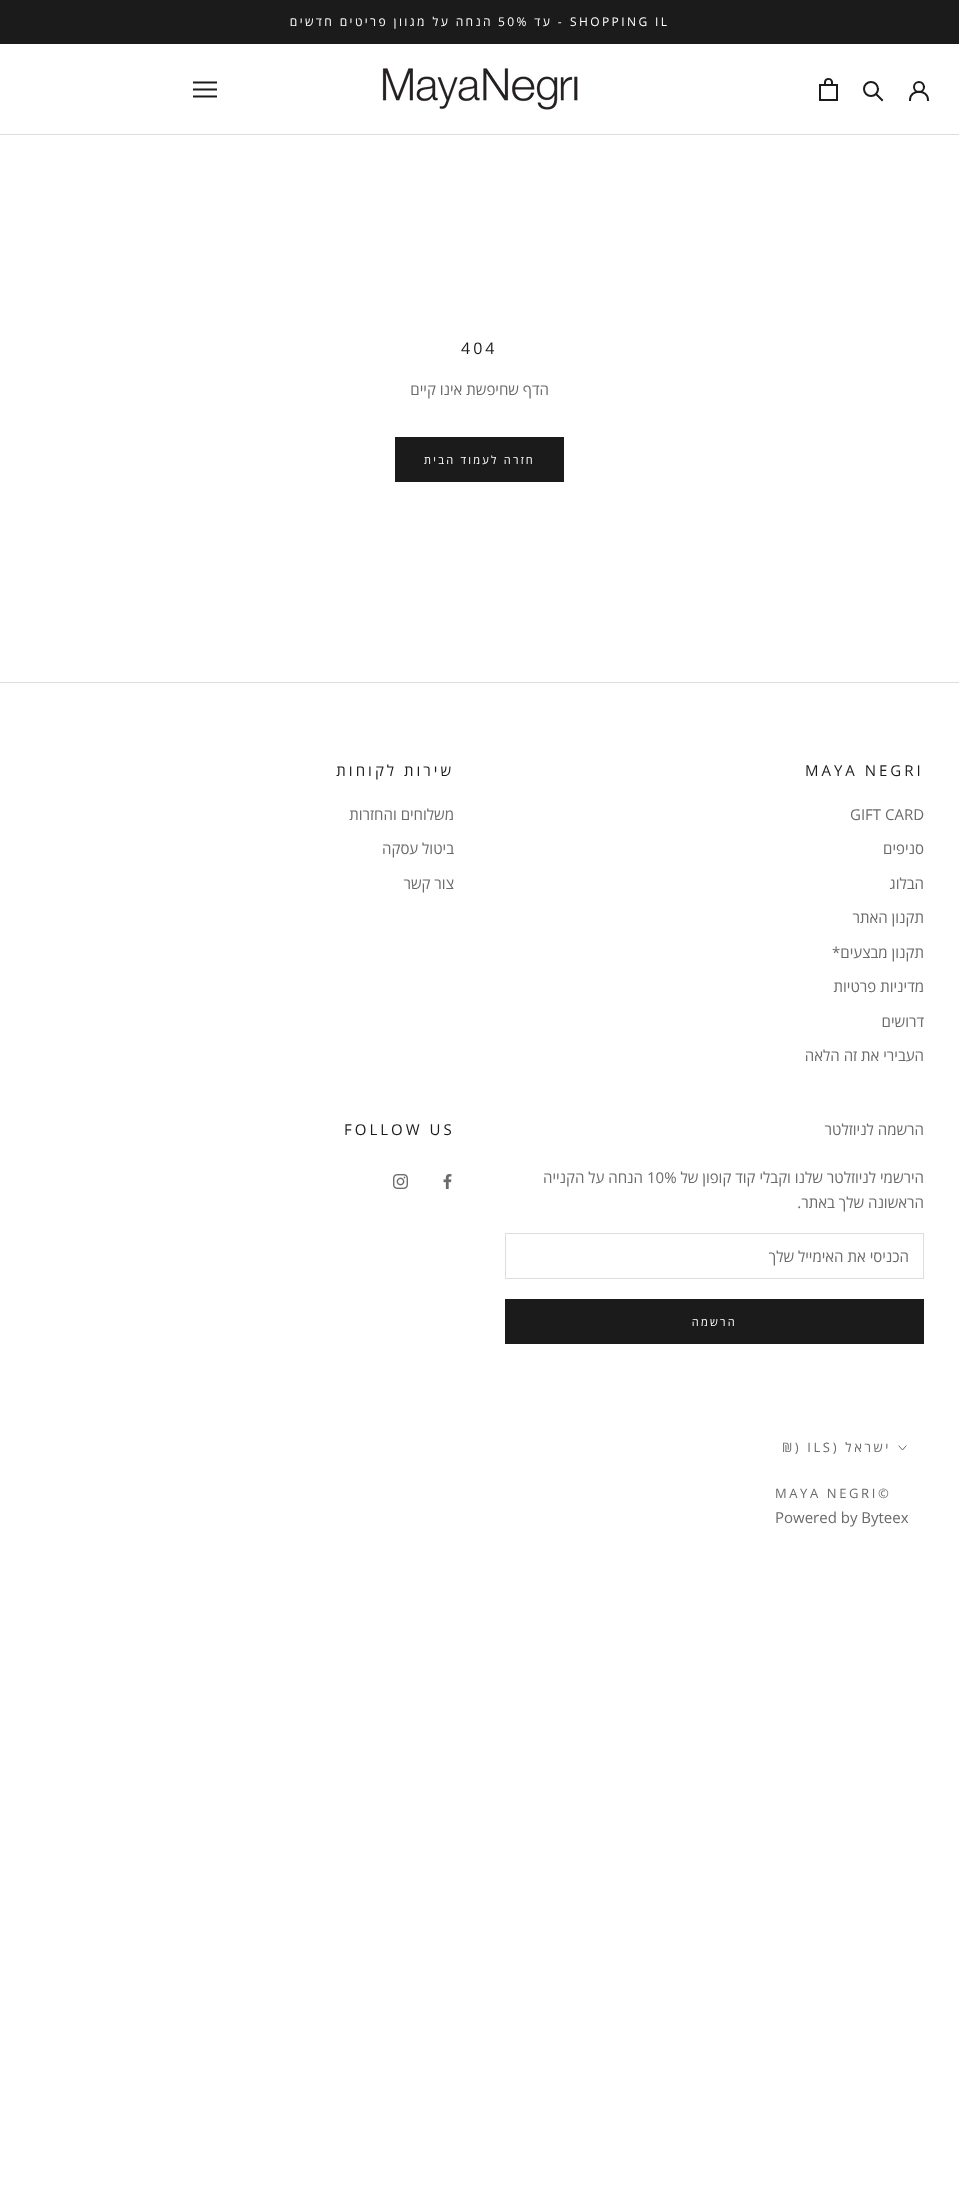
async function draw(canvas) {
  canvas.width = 959;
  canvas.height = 2195;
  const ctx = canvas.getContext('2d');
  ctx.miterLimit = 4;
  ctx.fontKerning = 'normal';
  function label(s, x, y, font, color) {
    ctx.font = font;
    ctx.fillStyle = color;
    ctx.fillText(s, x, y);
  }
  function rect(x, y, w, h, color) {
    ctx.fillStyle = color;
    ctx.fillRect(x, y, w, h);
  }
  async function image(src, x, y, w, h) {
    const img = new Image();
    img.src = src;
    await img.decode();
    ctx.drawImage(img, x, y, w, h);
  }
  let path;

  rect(0, 0, 959, 2195, '#fff');
  rect(0, 0, 959, 44, '#1c1b1b');
  ctx.letterSpacing = '2.4px';
  label('SHOPPING IL', 570, 26, '12px Open Sans', '#fff');
  ctx.direction = 'rtl';
  label('- עד', 564, 26, '12px Open Sans', '#fff');
  ctx.direction = 'ltr';
  label('50%', 498, 26, '12px Open Sans', '#fff');
  ctx.direction = 'rtl';
  label('הנחה על מגוון פריטים חדשים', 493, 26, '12px Open Sans', '#fff');
  rect(0, 134, 959, 1, '#ddd');
  path = new Path2D('M910 100C910 89 928 89 928 100');
  ctx.strokeStyle = '#1c1b1b';
  ctx.lineWidth = 2;
  ctx.lineCap = 'square';
  ctx.stroke(path);
  ctx.beginPath();
  ctx.arc(919, 87, 5, 0, 2 * Math.PI);
  ctx.stroke();
  path = new Path2D('M882 100L876.5 94.5');
  ctx.stroke(path);
  ctx.beginPath();
  ctx.arc(871, 89, 7, 0, 2 * Math.PI);
  ctx.stroke();
  await image('assets/img1.png', 819, 78, 19, 23);
  await image('assets/img2.png', 382, 68, 196, 42);
  await image('assets/img3.png', 193, 81, 24, 17);
  ctx.letterSpacing = '3px';
  ctx.direction = 'ltr';
  label('404', 461, 354, '16px Open Sans', '#1c1b1b');
  ctx.letterSpacing = '0px';
  ctx.direction = 'rtl';
  label('הדף שחיפשת אינו קיים', 549, 395, '15px Open Sans', '#6a6a6a');
  ctx.lineWidth = 1;
  ctx.strokeRect(395.5, 437.5, 168, 44);
  rect(396, 438, 167, 43, '#1c1b1b');
  ctx.letterSpacing = '2.25px';
  label('חזרה לעמוד הבית', 535, 464, '11px Open Sans', '#fff');
  rect(0, 682, 959, 1, '#ddd');
  ctx.letterSpacing = '3px';
  ctx.direction = 'ltr';
  label('MAYA NEGRI', 805, 776, '15px Open Sans', '#1c1b1b');
  ctx.letterSpacing = '0px';
  label('GIFT CARD', 850, 820, '15px Open Sans', '#6a6a6a');
  ctx.direction = 'rtl';
  label('סניפים', 924, 854, '15px Open Sans', '#6a6a6a');
  label('הבלוג', 924, 889, '15px Open Sans', '#6a6a6a');
  label('תקנון האתר', 924, 923, '15px Open Sans', '#6a6a6a');
  label('תקנון מבצעים*', 924, 958, '15px Open Sans', '#6a6a6a');
  label('מדיניות פרטיות', 924, 992, '15px Open Sans', '#6a6a6a');
  label('דרושים', 924, 1027, '15px Open Sans', '#6a6a6a');
  label('העבירי את זה הלאה', 924, 1061, '15px Open Sans', '#6a6a6a');
  ctx.letterSpacing = '3px';
  label('שירות לקוחות', 454, 776, '15px Open Sans', '#1c1b1b');
  ctx.letterSpacing = '0px';
  label('משלוחים והחזרות', 454, 820, '15px Open Sans', '#6a6a6a');
  label('ביטול עסקה', 454, 854, '15px Open Sans', '#6a6a6a');
  label('צור קשר', 454, 889, '15px Open Sans', '#6a6a6a');
  label('הרשמה לניוזלטר', 924, 1135, '15px Open Sans', '#6a6a6a');
  label('הירשמי לניוזלטר שלנו וקבלי קוד קופון של', 924, 1183, '15px Open Sans', '#6a6a6a');
  ctx.direction = 'ltr';
  label('10%', 647, 1183, '15px Open Sans', '#6a6a6a');
  ctx.direction = 'rtl';
  label('הנחה על הקנייה', 643, 1183, '15px Open Sans', '#6a6a6a');
  label('הראשונה שלך באתר.', 924, 1208, '15px Open Sans', '#6a6a6a');
  ctx.strokeStyle = '#ddd';
  ctx.strokeRect(505.5, 1233.5, 418, 45);
  label('הכניסי את האימייל שלך', 909, 1262, '15px Open Sans', '#6a6a6a');
  ctx.strokeStyle = '#1c1b1b';
  ctx.strokeRect(505.5, 1299.5, 418, 44);
  rect(506, 1300, 417, 43, '#1c1b1b');
  ctx.letterSpacing = '2.25px';
  label('הרשמה', 737, 1326, '11px Open Sans', '#fff');
  ctx.letterSpacing = '3px';
  ctx.direction = 'ltr';
  label('FOLLOW US', 344, 1135, '15px Open Sans', '#1c1b1b');
  await image('assets/img4.png', 443, 1174, 9, 15);
  await image('assets/img5.png', 393, 1174, 15, 15);
  path = new Path2D('M906 1446L902.5 1450L899 1446');
  ctx.strokeStyle = '#6a6a6a';
  ctx.stroke(path);
  ctx.letterSpacing = '2.6px';
  ctx.direction = 'rtl';
  label('ישראל (', 891, 1452, '13px Open Sans', '#6a6a6a');
  ctx.direction = 'ltr';
  label('₪) ILS', 782, 1452, '13px Open Sans', '#6a6a6a');
  label('MAYA NEGRI©', 775, 1498, '13px Open Sans', '#6a6a6a');
  ctx.letterSpacing = '0px';
  label('Powered by Byteex', 775, 1523, '15px Open Sans', '#6a6a6a');
}

draw(document.querySelector('canvas'));
